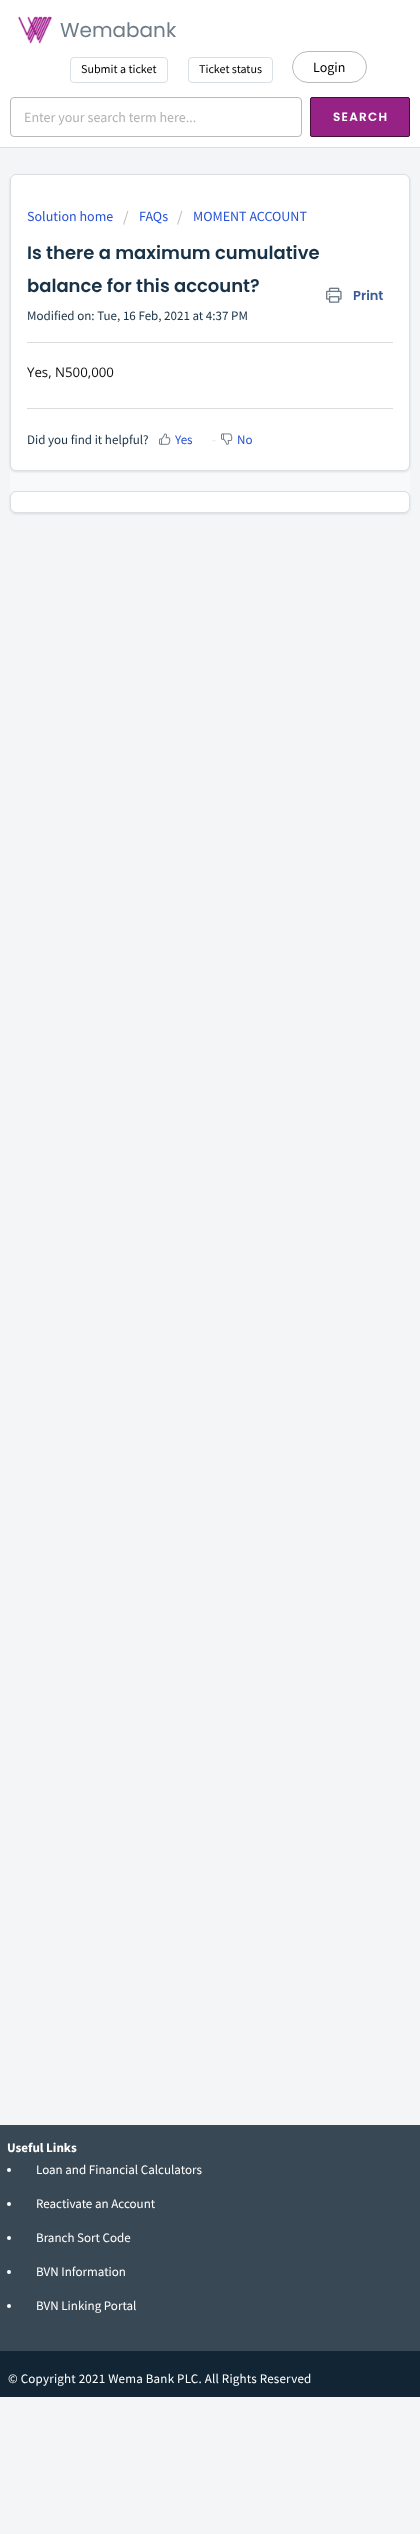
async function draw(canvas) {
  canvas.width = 420;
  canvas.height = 2534;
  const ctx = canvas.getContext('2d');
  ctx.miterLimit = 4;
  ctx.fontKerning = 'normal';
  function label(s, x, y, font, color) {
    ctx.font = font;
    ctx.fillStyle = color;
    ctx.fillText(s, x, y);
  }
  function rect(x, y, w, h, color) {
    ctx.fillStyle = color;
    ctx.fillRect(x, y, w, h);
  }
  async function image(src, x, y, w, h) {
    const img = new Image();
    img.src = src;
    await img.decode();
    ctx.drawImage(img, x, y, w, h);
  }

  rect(0, 0, 420, 2534, '#f3f5f7');
  rect(0, 0, 420, 147, '#fff');
  rect(0, 147, 420, 1, '#dadfe3');
  await image('assets/img1.png', 18, 16, 34, 28);
  label('Wemabank', 60, 37, '20px Poppins', '#6f7c87');
  ctx.beginPath();
  ctx.roundRect(70.5, 57.5, 97, 25, 3.5);
  ctx.strokeStyle = '#dadfe3';
  ctx.stroke();
  label('Submit a ticket', 81, 73, '12px Source Sans Pro', '#000');
  ctx.beginPath();
  ctx.roundRect(188.5, 57.5, 84, 25, 3.5);
  ctx.stroke();
  label('Ticket status', 199, 73, '12px Source Sans Pro', '#000');
  ctx.beginPath();
  ctx.roundRect(292.5, 51.5, 74, 31, 15.5);
  ctx.strokeStyle = '#bcb9b9';
  ctx.stroke();
  label('Login', 313, 72, '14px Source Sans Pro', '#000');
  ctx.beginPath();
  ctx.roundRect(10.5, 97.5, 291, 39, 3.5);
  ctx.stroke();
  label('Enter your search term here...', 24, 122, '14px Source Sans Pro', '#b2b2b2');
  ctx.fillStyle = '#972286';
  ctx.beginPath();
  ctx.roundRect(310.5, 97.5, 99, 39, 1.5);
  ctx.fill();
  ctx.strokeStyle = '#440f3c';
  ctx.stroke();
  ctx.letterSpacing = '1.25px';
  label('SEARCH', 333, 121, '600 12px Poppins', '#fff');
  rect(10, 174, 400, 339, '#f8f9fa');
  ctx.fillStyle = '#3f3f4426';
  ctx.filter = 'blur(1px)';
  ctx.beginPath();
  ctx.roundRect(10, 175, 400, 297, 6);
  ctx.fill();
  ctx.filter = 'none';
  ctx.fillStyle = '#fff';
  ctx.beginPath();
  ctx.roundRect(10.5, 174.5, 399, 296, 5.5);
  ctx.fill();
  ctx.strokeStyle = '#dadfe3';
  ctx.stroke();
  ctx.letterSpacing = '0px';
  label('Solution home', 27, 221, '14px Source Sans Pro', '#2753d7');
  label('/', 123, 222, '16px Source Sans Pro', '#bbb');
  label('FAQs', 139, 221, '14px Source Sans Pro', '#2753d7');
  label('/', 177, 222, '16px Source Sans Pro', '#bbb');
  label('MOMENT ACCOUNT', 193, 221, '14px Source Sans Pro', '#2753d7');
  label('Is there a maximum cumulative', 27, 259, '600 18px Poppins', '#183247');
  label('balance for this account?', 27, 292, '600 18px Poppins', '#183247');
  await image('assets/img2.png', 326, 287, 16, 16);
  label('Print', 353, 300, '600 13px Poppins', '#3b5998');
  label('Modified on: Tue, 16 Feb, 2021 at 4:37 PM', 27, 320, '13px Source Sans Pro', '#183247');
  rect(27, 342, 366, 1, '#dcdcdc');
  label('Yes, N500,000', 27, 377, '13.25px Open Sans', '#0d0d0d');
  rect(27, 408, 366, 1, '#dcdcdc');
  label('Did you find it helpful?', 27, 444, '13px Source Sans Pro', '#183247');
  await image('assets/img3.png', 159, 433, 12, 12);
  label('Yes', 175, 444, '13px Source Sans Pro', '#2753d7');
  label('-', 212, 444, '13px Source Sans Pro', '#e5e5e5');
  await image('assets/img4.png', 221, 433, 12, 12);
  label('No', 237, 444, '13px Source Sans Pro', '#2753d7');
  ctx.fillStyle = '#3f3f4426';
  ctx.filter = 'blur(1px)';
  ctx.beginPath();
  ctx.roundRect(10, 492, 400, 22, 6);
  ctx.fill();
  ctx.filter = 'none';
  ctx.fillStyle = '#fff';
  ctx.beginPath();
  ctx.roundRect(10.5, 491.5, 399, 21, 5.5);
  ctx.fill();
  ctx.stroke();
  rect(0, 2125, 420, 226, '#384854');
  label('Useful Links', 7, 2152, 'bold 13px Source Sans Pro', '#fff');
  ctx.beginPath();
  ctx.arc(9, 2170, 2, 0, 2 * Math.PI);
  ctx.fill();
  label('Loan and Financial Calculators', 36, 2174, '13px Source Sans Pro', '#fff');
  ctx.beginPath();
  ctx.arc(9, 2204, 2, 0, 2 * Math.PI);
  ctx.fill();
  label('Reactivate an Account', 36, 2208, '13px Source Sans Pro', '#fff');
  ctx.beginPath();
  ctx.arc(9, 2238, 2, 0, 2 * Math.PI);
  ctx.fill();
  label('Branch Sort Code', 36, 2242, '13px Source Sans Pro', '#fff');
  ctx.beginPath();
  ctx.arc(9, 2272, 2, 0, 2 * Math.PI);
  ctx.fill();
  label('BVN Information', 36, 2276, '13px Source Sans Pro', '#fff');
  ctx.beginPath();
  ctx.arc(9, 2306, 2, 0, 2 * Math.PI);
  ctx.fill();
  label('BVN Linking Portal', 36, 2310, '13px Source Sans Pro', '#fff');
  rect(0, 2351, 420, 46, '#122534');
  ctx.letterSpacing = '0.2px';
  label('© Copyright 2021 Wema Bank PLC. All Rights Reserved', 8, 2383, '13px Source Sans Pro', '#fff');
}

draw(document.querySelector('canvas'));
